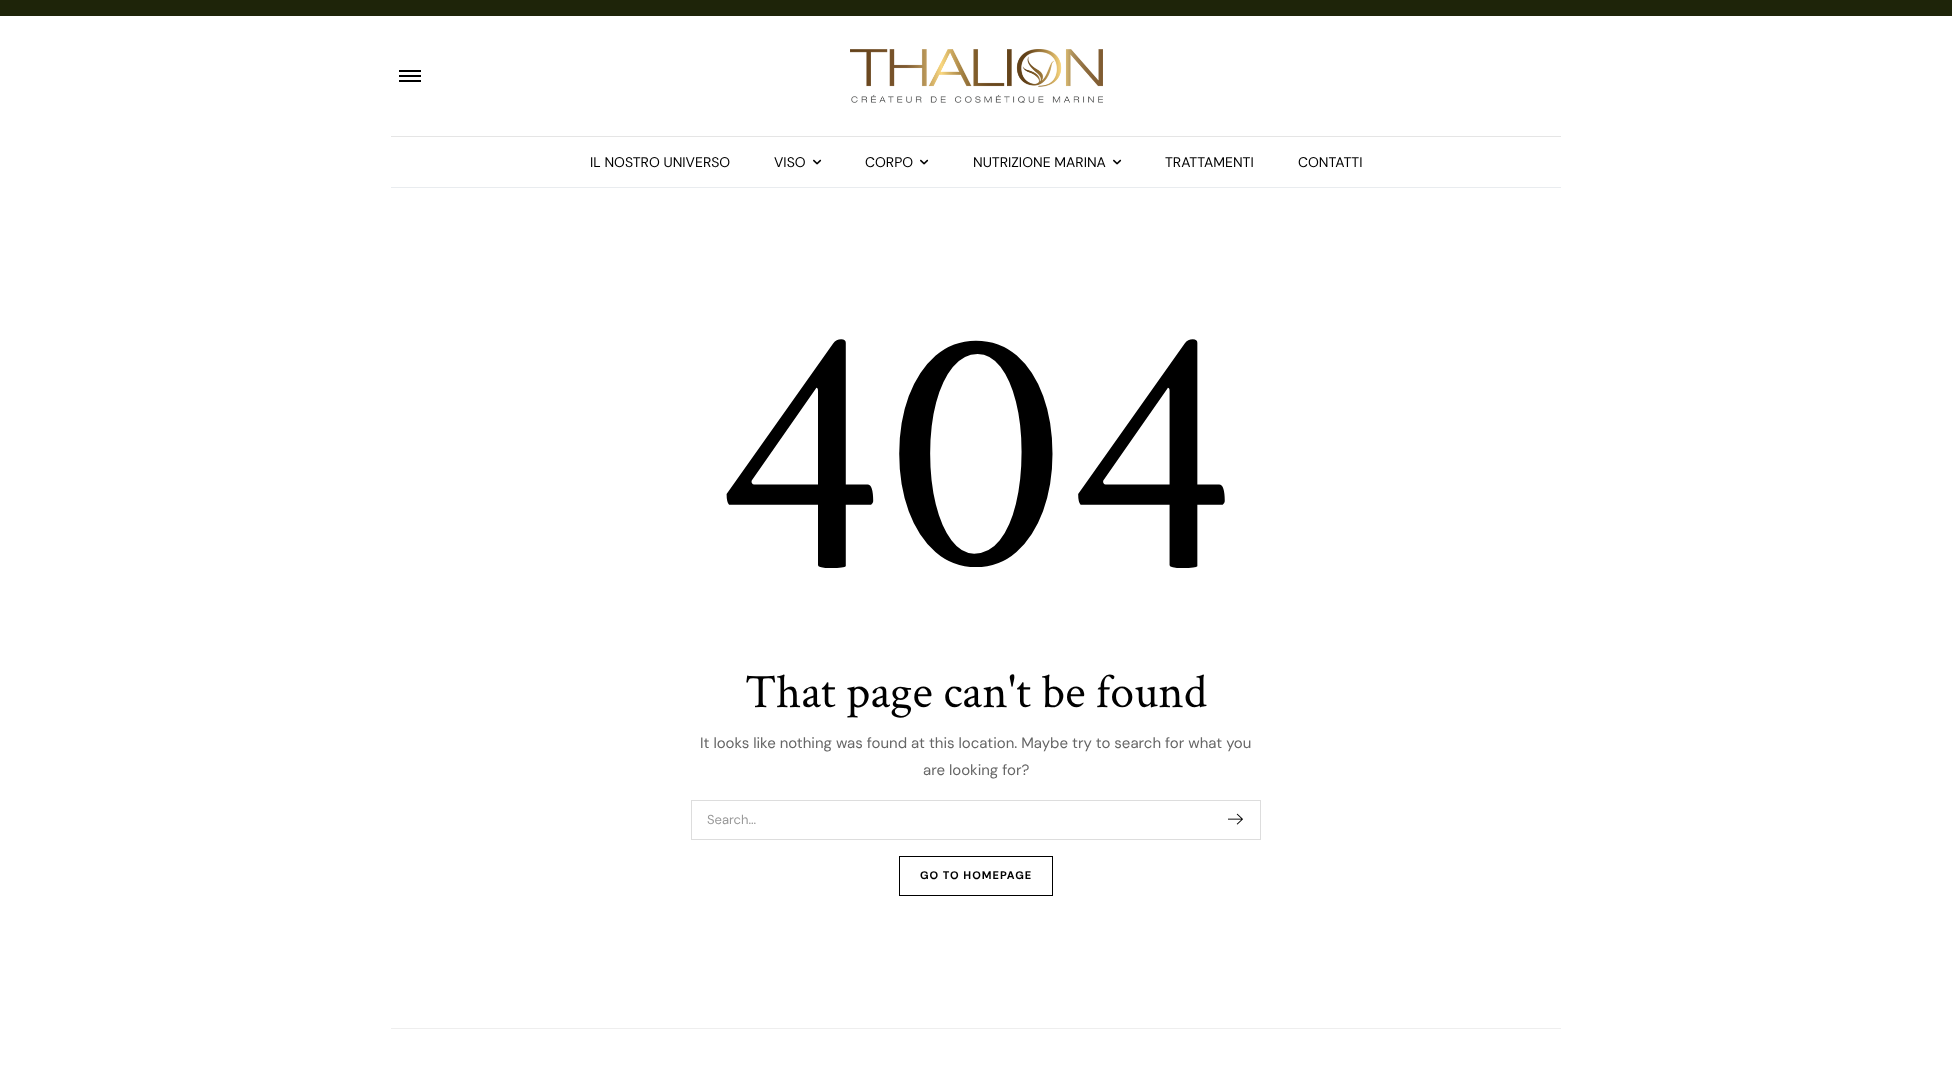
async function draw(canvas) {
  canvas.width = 1952;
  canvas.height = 1069;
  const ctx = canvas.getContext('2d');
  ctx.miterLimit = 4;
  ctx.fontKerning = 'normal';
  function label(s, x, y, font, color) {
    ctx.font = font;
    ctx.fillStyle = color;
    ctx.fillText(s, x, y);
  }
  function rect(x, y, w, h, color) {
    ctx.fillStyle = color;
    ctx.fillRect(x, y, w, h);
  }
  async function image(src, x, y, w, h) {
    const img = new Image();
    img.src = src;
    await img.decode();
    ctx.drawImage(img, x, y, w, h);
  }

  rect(0, 0, 1952, 1069, '#fff');
  rect(0, 0, 1952, 16, '#1e2409');
  rect(399, 70, 22, 2, '#000');
  rect(399, 75, 22, 2, '#000');
  rect(399, 80, 22, 2, '#000');
  await image('assets/img1.png', 850, 49, 253, 54);
  rect(391, 136, 1170, 1, '#e5e5e5');
  label('IL NOSTRO UNIVERSO', 590, 167, '14px DM Sans', '#000');
  label('VISO', 774, 167, '14px DM Sans', '#000');
  await image('assets/img2.png', 813, 159, 9, 6);
  label('CORPO', 865, 167, '14px DM Sans', '#000');
  await image('assets/img2.png', 920, 159, 9, 6);
  label('NUTRIZIONE MARINA', 973, 167, '14px DM Sans', '#000');
  await image('assets/img2.png', 1113, 159, 9, 6);
  label('TRATTAMENTI', 1165, 167, '14px DM Sans', '#000');
  label('CONTATTI', 1298, 167, '14px DM Sans', '#000');
  rect(391, 187, 1170, 1, '#e9ecef');
  label('404', 715, 566, '360px Crimson Text', '#000');
  label('That page can\'t be found', 745, 707, '48px Crimson Text', '#000');
  label('It looks like nothing was found at this location. Maybe try to search for what you', 700, 748, '15px DM Sans', '#666');
  label('are looking for?', 923, 775, '15px DM Sans', '#666');
  ctx.strokeStyle = '#ddd';
  ctx.strokeRect(691.5, 800.5, 569, 39);
  label('Search...', 707, 824, '13px DM Sans', '#999');
  await image('assets/img3.png', 1228, 813, 15, 12);
  ctx.strokeStyle = '#000';
  ctx.strokeRect(899.5, 856.5, 153, 39);
  ctx.letterSpacing = '1px';
  label('GO TO HOMEPAGE', 920, 879, 'bold 11px DM Sans', '#000');
  rect(391, 1028, 1170, 1, '#eee');
}

draw(document.querySelector('canvas'));
